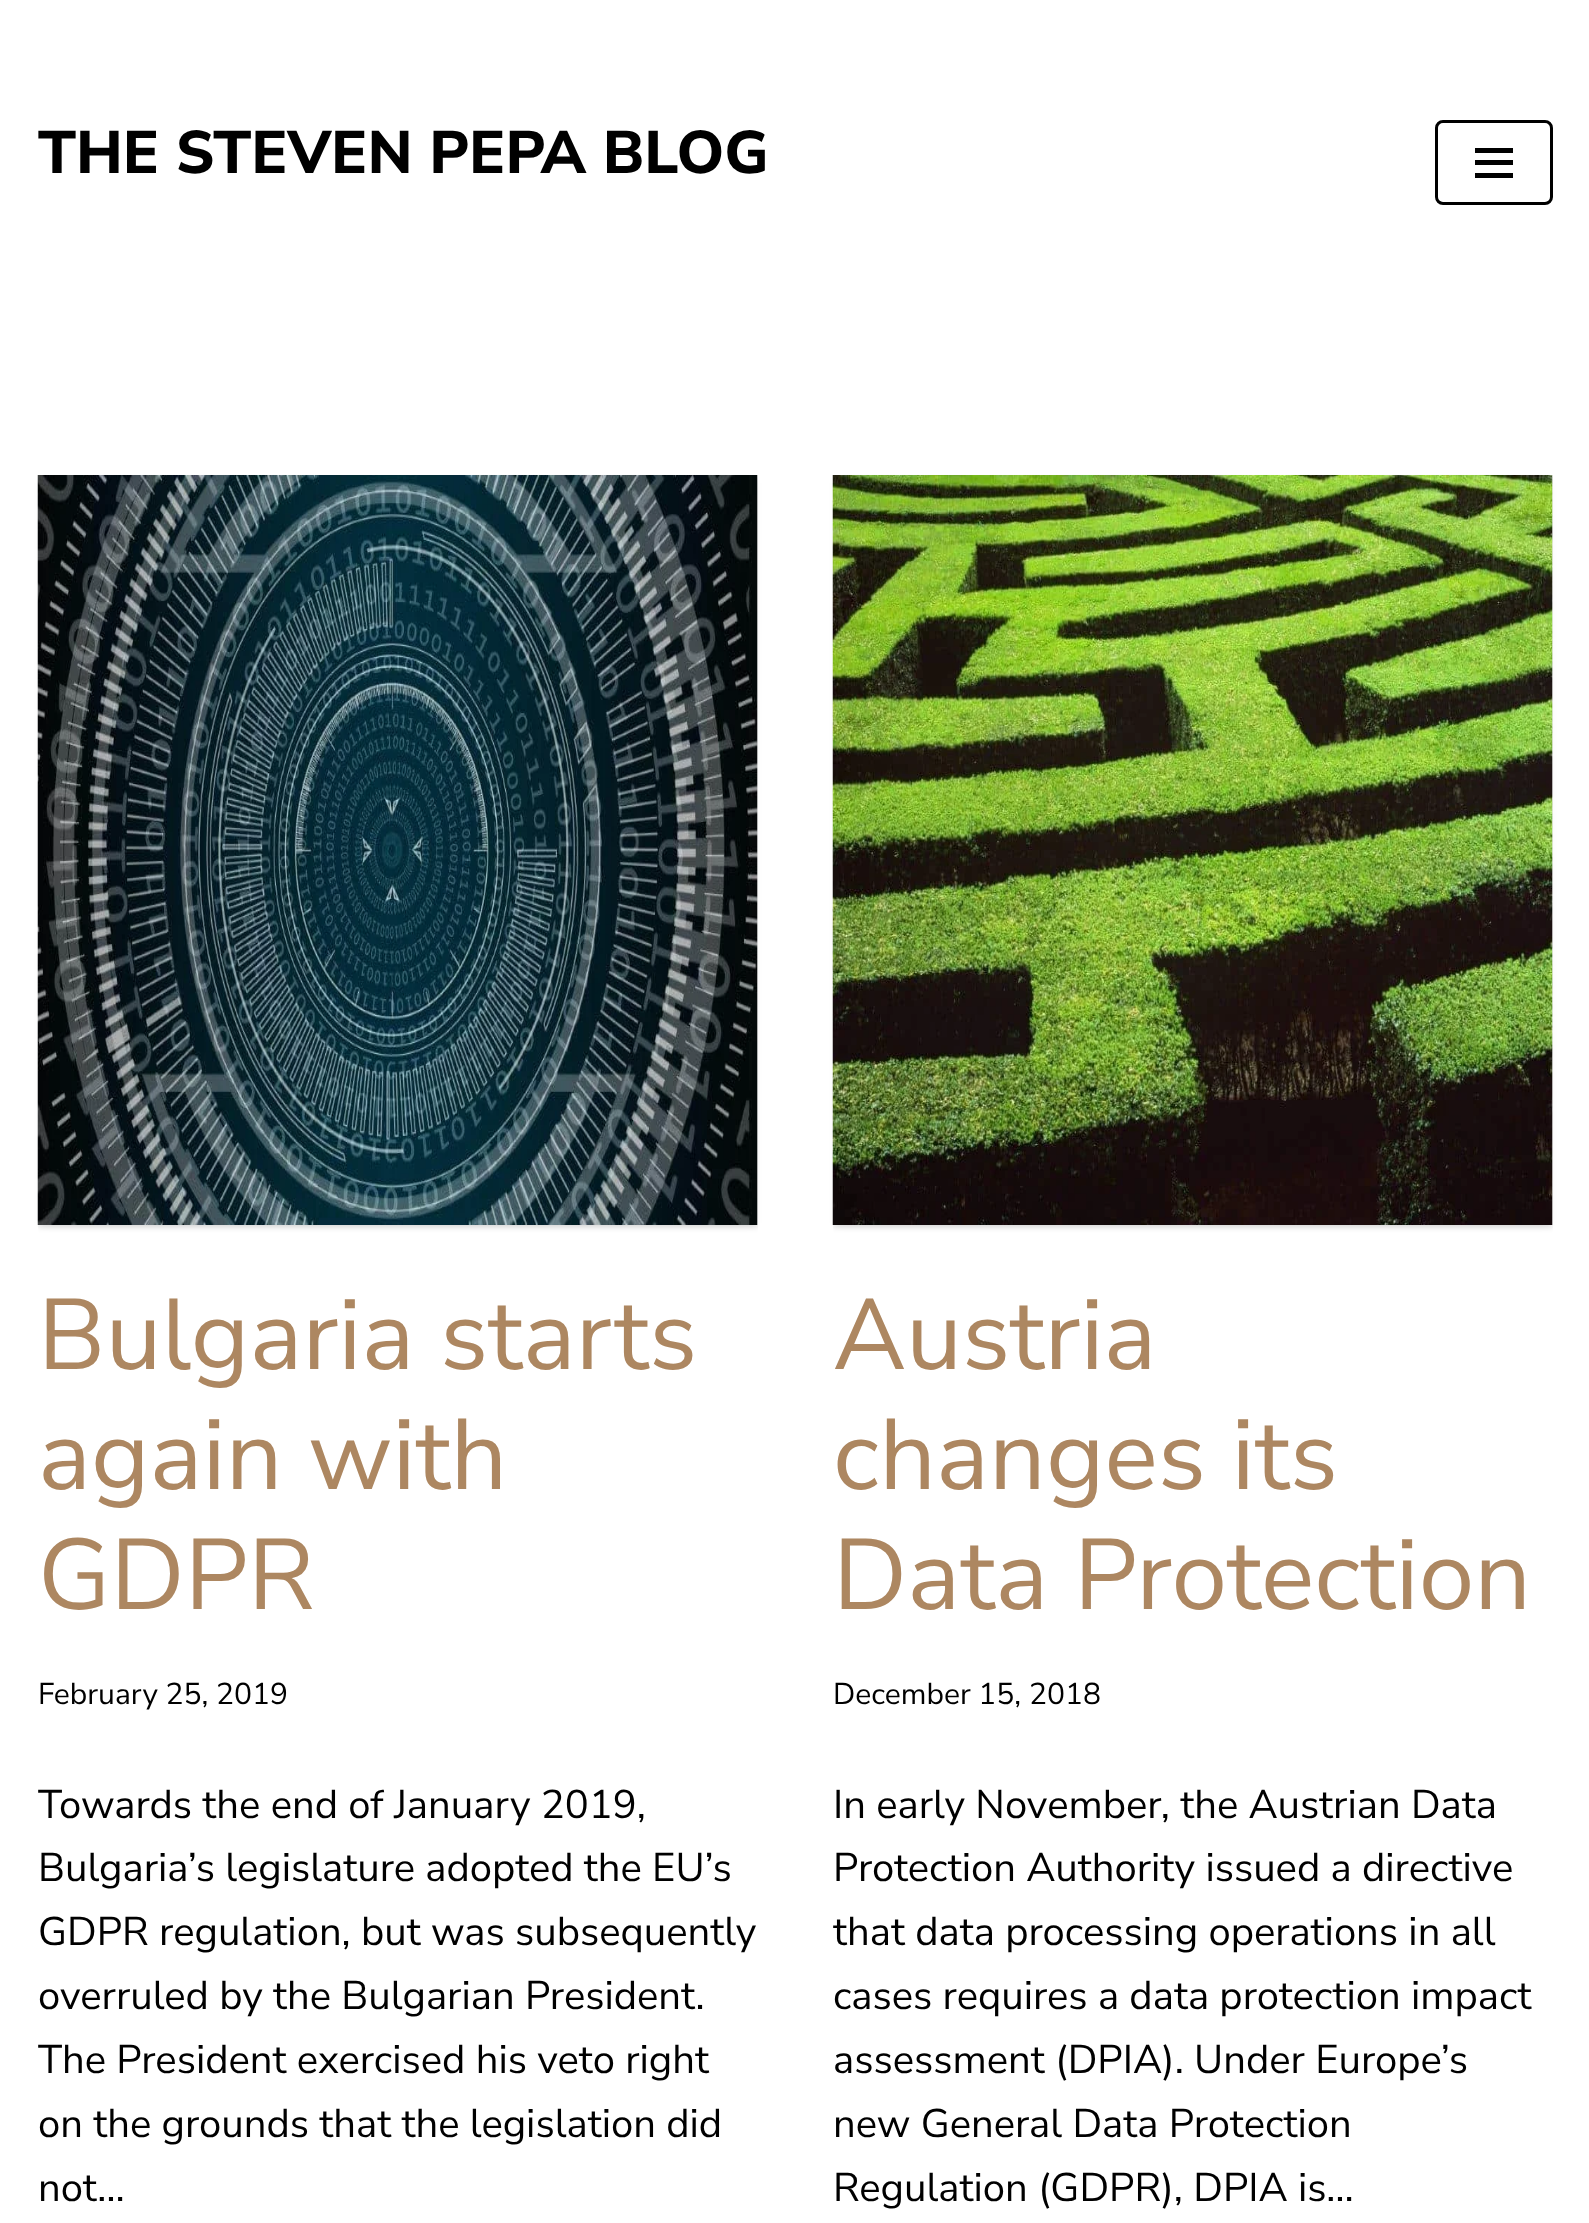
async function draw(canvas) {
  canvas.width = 1589;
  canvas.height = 2223;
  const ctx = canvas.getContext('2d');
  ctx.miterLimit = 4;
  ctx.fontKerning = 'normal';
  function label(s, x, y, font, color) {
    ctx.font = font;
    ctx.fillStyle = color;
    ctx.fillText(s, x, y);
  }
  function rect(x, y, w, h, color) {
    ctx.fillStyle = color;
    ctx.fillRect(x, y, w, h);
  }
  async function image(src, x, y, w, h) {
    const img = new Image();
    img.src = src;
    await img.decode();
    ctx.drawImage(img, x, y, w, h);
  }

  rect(0, 0, 1589, 2223, '#fff');
  label('THE STEVEN PEPA BLOG', 38, 173, '800 60px Nunito Sans', '#000');
  ctx.beginPath();
  ctx.roundRect(1436.5, 121.5, 115, 82, 6.5);
  ctx.strokeStyle = '#000';
  ctx.lineWidth = 3;
  ctx.stroke();
  rect(1475, 148, 38, 5, '#000');
  rect(1475, 160, 38, 5, '#000');
  rect(1475, 173, 38, 5, '#000');
  ctx.save();
  ctx.beginPath();
  ctx.rect(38, 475, 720, 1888);
  ctx.clip();
  ctx.fillStyle = '#0000001a';
  ctx.filter = 'blur(2.5px)';
  ctx.beginPath();
  ctx.rect(38, 478, 720, 750);
  ctx.fill();
  ctx.filter = 'none';
  ctx.restore();
  ctx.fillStyle = '#0000001f';
  ctx.filter = 'blur(4px)';
  ctx.beginPath();
  ctx.rect(43, 483, 710, 740);
  ctx.fill();
  ctx.filter = 'none';
  await image('assets/img1.png', 37, 475, 721, 750);
  label('Bulgaria starts', 38, 1369, '100px Nunito Sans', '#ad8761');
  label('again with', 38, 1489, '100px Nunito Sans', '#ad8761');
  label('GDPR', 38, 1609, '100px Nunito Sans', '#ad8761');
  label('February 25, 2019', 38, 1704, '30px Nunito Sans', '#000');
  ctx.save();
  ctx.beginPath();
  ctx.rect(38, 475, 720, 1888);
  ctx.clip();
  label('Towards the end of January 2019,', 38, 1818, '40px Nunito Sans', '#000');
  ctx.restore();
  label('Bulgaria’s legislature adopted the EU’s', 38, 1881, '40px Nunito Sans', '#000');
  label('GDPR regulation, but was subsequently', 38, 1945, '40px Nunito Sans', '#000');
  label('overruled by the Bulgarian President.', 38, 2009, '40px Nunito Sans', '#000');
  ctx.save();
  ctx.beginPath();
  ctx.rect(38, 475, 720, 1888);
  ctx.clip();
  label('The President exercised his veto right', 38, 2073, '40px Nunito Sans', '#000');
  ctx.restore();
  label('on the grounds that the legislation did', 38, 2137, '40px Nunito Sans', '#000');
  label('not…', 38, 2201, '40px Nunito Sans', '#000');
  ctx.save();
  ctx.beginPath();
  ctx.rect(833, 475, 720, 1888);
  ctx.clip();
  ctx.fillStyle = '#0000001a';
  ctx.filter = 'blur(2.5px)';
  ctx.beginPath();
  ctx.rect(833, 478, 720, 750);
  ctx.fill();
  ctx.filter = 'none';
  ctx.restore();
  ctx.fillStyle = '#0000001f';
  ctx.filter = 'blur(4px)';
  ctx.beginPath();
  ctx.rect(838, 483, 710, 740);
  ctx.fill();
  ctx.filter = 'none';
  await image('assets/img2.png', 832, 475, 721, 750);
  label('Austria', 833, 1369, '100px Nunito Sans', '#ad8761');
  label('changes its', 833, 1489, '100px Nunito Sans', '#ad8761');
  label('Data Protection', 833, 1609, '100px Nunito Sans', '#ad8761');
  label('December 15, 2018', 833, 1704, '30px Nunito Sans', '#000');
  label('In early November, the Austrian Data', 833, 1818, '40px Nunito Sans', '#000');
  label('Protection Authority issued a directive', 833, 1881, '40px Nunito Sans', '#000');
  ctx.save();
  ctx.beginPath();
  ctx.rect(833, 475, 720, 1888);
  ctx.clip();
  label('that data processing operations in all', 833, 1945, '40px Nunito Sans', '#000');
  ctx.restore();
  label('cases requires a data protection impact', 833, 2009, '40px Nunito Sans', '#000');
  label('assessment (DPIA). Under Europe’s', 833, 2073, '40px Nunito Sans', '#000');
  label('new General Data Protection', 833, 2137, '40px Nunito Sans', '#000');
  label('Regulation (GDPR), DPIA is…', 833, 2201, '40px Nunito Sans', '#000');
}

draw(document.querySelector('canvas'));
